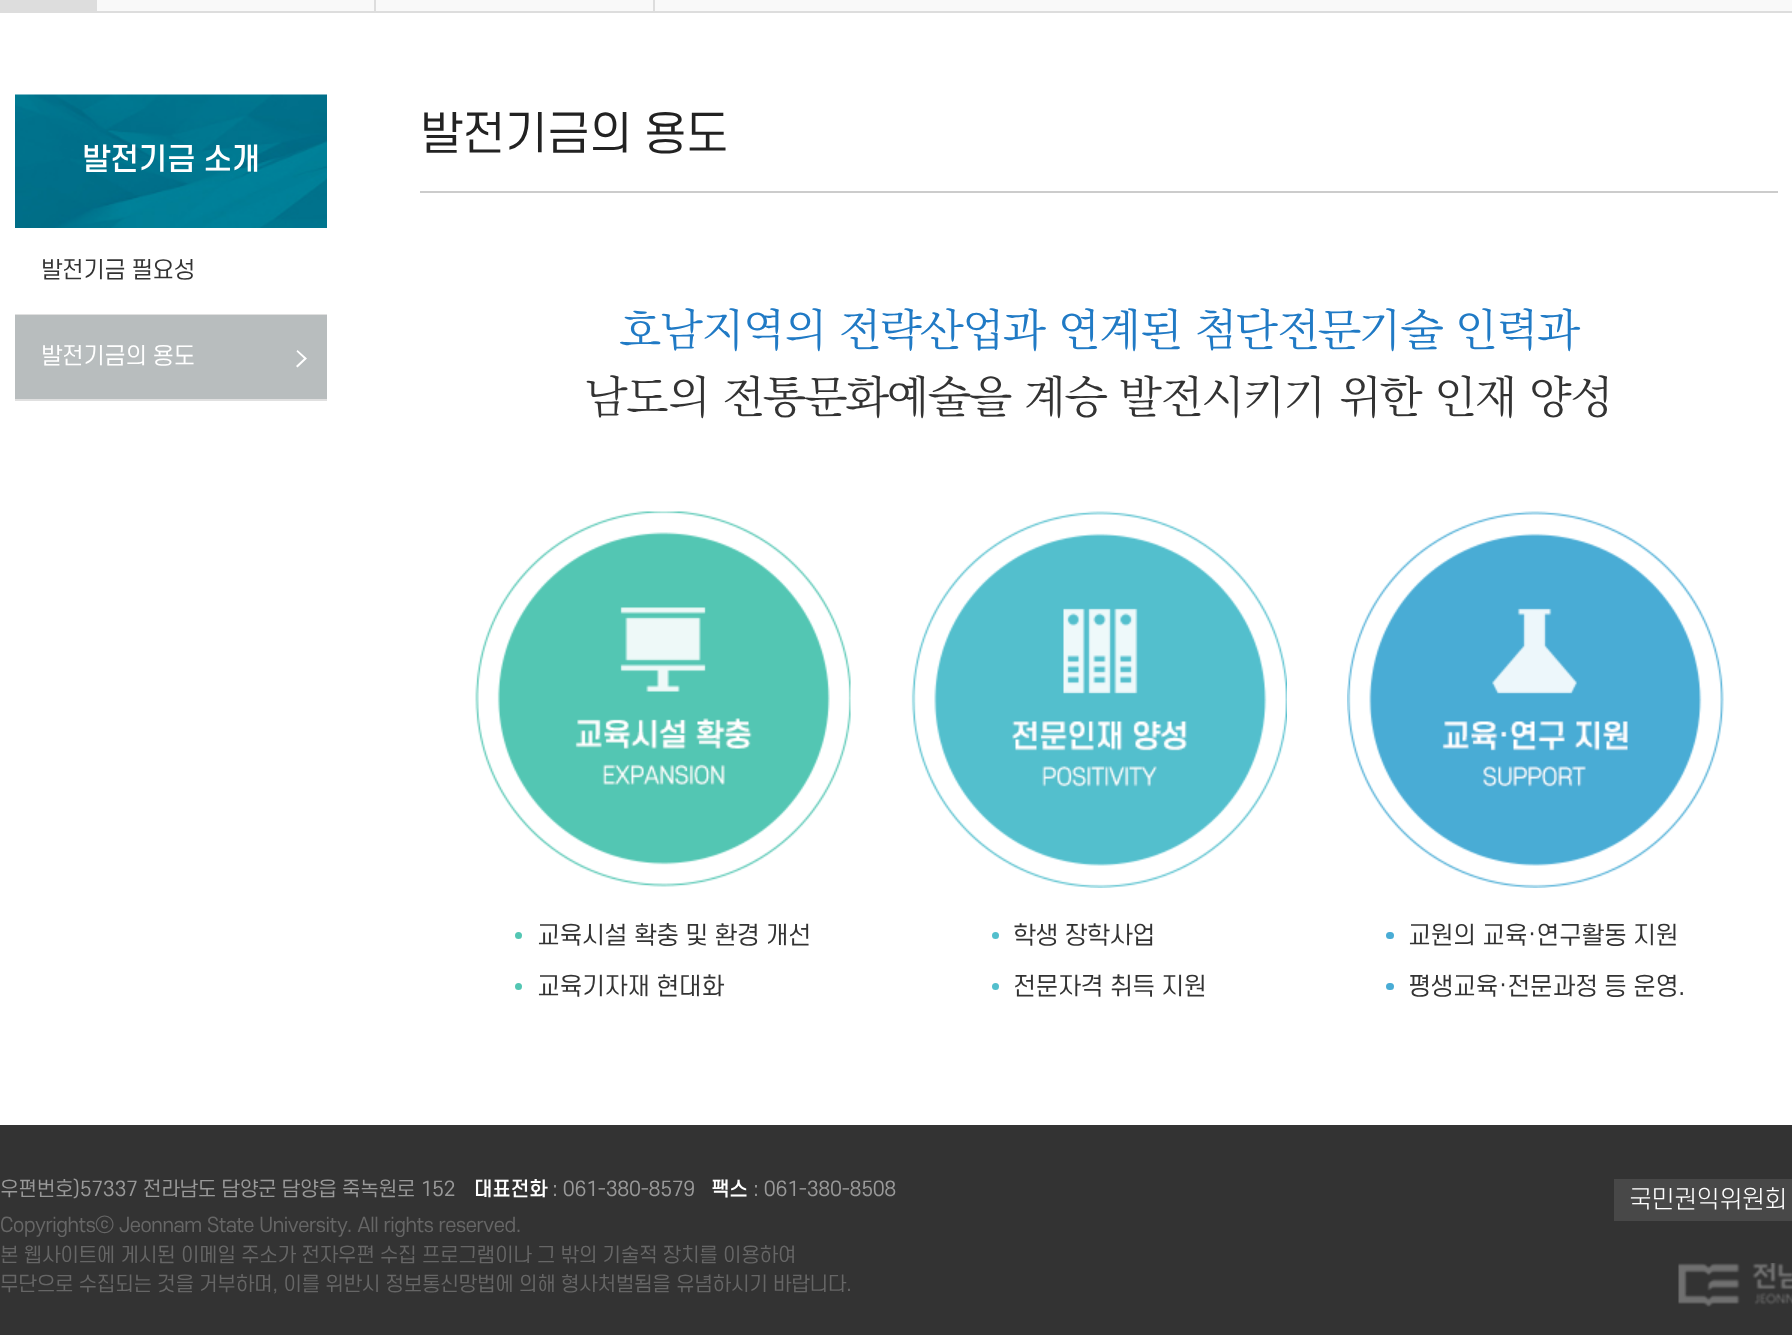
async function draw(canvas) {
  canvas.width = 1792;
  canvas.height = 1335;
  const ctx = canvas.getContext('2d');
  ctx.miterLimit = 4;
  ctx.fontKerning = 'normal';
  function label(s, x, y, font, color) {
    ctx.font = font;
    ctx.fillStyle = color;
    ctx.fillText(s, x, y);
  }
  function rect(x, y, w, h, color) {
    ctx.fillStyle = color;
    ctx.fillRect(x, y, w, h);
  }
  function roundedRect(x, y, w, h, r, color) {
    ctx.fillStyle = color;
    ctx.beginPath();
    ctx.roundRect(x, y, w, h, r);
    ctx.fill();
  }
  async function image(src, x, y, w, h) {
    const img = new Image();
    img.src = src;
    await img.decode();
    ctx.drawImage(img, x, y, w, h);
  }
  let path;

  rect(0, 0, 1792, 1335, '#fff');
  rect(97, 0, 1695, 11, '#f9f9f9');
  rect(0, 11, 1792, 2, '#ddd');
  rect(0, 0, 97, 11, '#ddd');
  rect(374, 0, 2, 11, '#ddd');
  rect(653, 0, 2, 11, '#ddd');
  await image('assets/img1.png', 15, 94, 312, 134);
  ctx.letterSpacing = '-0.5px';
  label('발전기금 소개', 82, 170, '500 30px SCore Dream', '#fff');
  rect(15, 314, 312, 1, '#e0e0e0');
  label('발전기금 필요성', 41, 278, '22.5px SCore Dream', '#333');
  rect(15, 315, 312, 84, '#b8bdbe');
  rect(15, 399, 312, 2, '#e0e0e0');
  label('발전기금의 용도', 41, 364, '22.5px SCore Dream', '#fff');
  path = new Path2D('M296 366L304 358.5L296.5 351.5L297.5 350L307 358.5L297.5 367.5Z');
  ctx.fill(path);
  rect(420, 191, 1358, 2, '#ccc');
  ctx.letterSpacing = '-0.9px';
  label('발전기금의 용도', 420, 150, '45px SCore Dream', '#222');
  label('호남지역의 전략산업과 연계된 첨단전문기술 인력과', 619, 344, '300 45px KoPub Batang', '#207ac5');
  label('남도의 전통문화예술을 계승 발전시키기 위한 인재 양성', 585, 411, '300 45px KoPub Batang', '#333');
  await image('assets/img2.png', 475, 511, 376, 376);
  ctx.fillStyle = '#53c6b3';
  ctx.beginPath();
  ctx.arc(518.5, 935.5, 3.5, 0, 2 * Math.PI);
  ctx.fill();
  ctx.letterSpacing = '-0.5px';
  label('교육시설 확충 및 환경 개선', 537, 944, '24px SCore Dream', '#333');
  ctx.fillStyle = '#53c6b3';
  ctx.beginPath();
  ctx.arc(518.5, 986.5, 3.5, 0, 2 * Math.PI);
  ctx.fill();
  label('교육기자재 현대화', 537, 995, '24px SCore Dream', '#333');
  await image('assets/img3.png', 911, 511, 376, 377);
  ctx.fillStyle = '#53bfcd';
  ctx.beginPath();
  ctx.arc(995.5, 935.5, 3.5, 0, 2 * Math.PI);
  ctx.fill();
  label('학생 장학사업', 1013, 944, '24px SCore Dream', '#333');
  ctx.fillStyle = '#53bfcd';
  ctx.beginPath();
  ctx.arc(995.5, 986.5, 3.5, 0, 2 * Math.PI);
  ctx.fill();
  label('전문자격 취득 지원', 1013, 995, '24px SCore Dream', '#333');
  await image('assets/img4.png', 1347, 511, 377, 377);
  roundedRect(1386, 932, 8, 7, 3.5, '#49acd5');
  label('교원의 교육·연구활동 지원', 1408, 944, '24px SCore Dream', '#333');
  roundedRect(1386, 983, 8, 7, 3.5, '#49acd5');
  label('평생교육·전문과정 등 운영.', 1408, 995, '24px SCore Dream', '#333');
  rect(0, 1125, 1792, 210, '#333');
  ctx.letterSpacing = '-0.4px';
  label('우편번호)57337 전라남도 담양군 담양읍 죽녹원로 152', 0, 1196, '19.5px SCore Dream', '#999');
  label('대표전화', 474, 1196, '500 19.5px SCore Dream', '#fff');
  label(': 061-380-8579', 552, 1196, '19.5px SCore Dream', '#999');
  label('팩스', 711, 1196, '500 19.5px SCore Dream', '#fff');
  label(': 061-380-8508', 753, 1196, '19.5px SCore Dream', '#999');
  label('Copyrightsⓒ Jeonnam State University. All rights reserved.', 0, 1232, '19.5px SCore Dream', '#666');
  label('본 웹사이트에 게시된 이메일 주소가 전자우편 수집 프로그램이나 그 밖의 기술적 장치를 이용하여', 0, 1262, '19.5px SCore Dream', '#666');
  label('무단으로 수집되는 것을 거부하며, 이를 위반시 정보통신망법에 의해 형사처벌됨을 유념하시기 바랍니다.', 0, 1291, '19.5px SCore Dream', '#666');
  rect(1614, 1179, 178, 42, '#484848');
  ctx.letterSpacing = '-0.5px';
  label('국민권익위원회', 1629, 1208, '300 24px SCore Dream', '#fff');
  await image('assets/img5.png', 1678, 1263, 114, 44);
}

draw(document.querySelector('canvas'));
